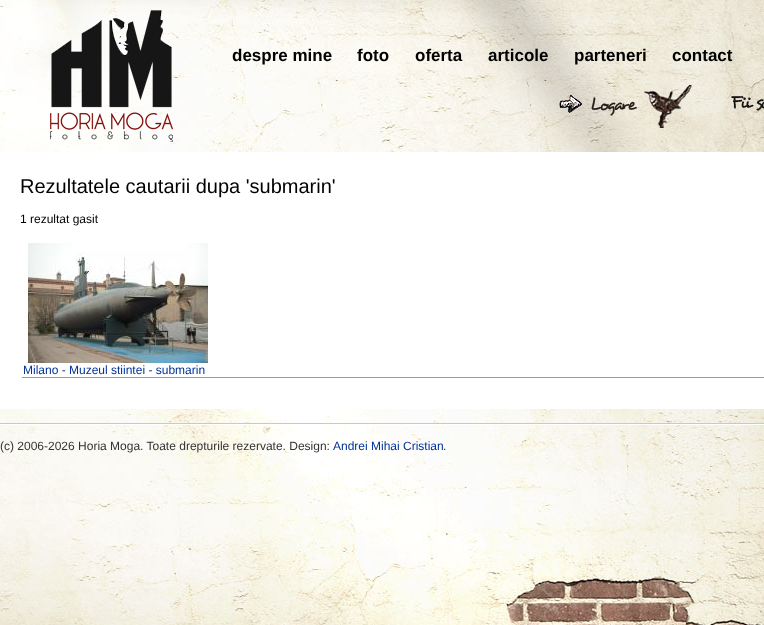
async function draw(canvas) {
  canvas.width = 764;
  canvas.height = 625;
  const ctx = canvas.getContext('2d');
  ctx.miterLimit = 4;
  ctx.fontKerning = 'normal';
  function label(s, x, y, font, color) {
    ctx.font = font;
    ctx.fillStyle = color;
    ctx.fillText(s, x, y);
  }
  function rect(x, y, w, h, color) {
    ctx.fillStyle = color;
    ctx.fillRect(x, y, w, h);
  }
  async function image(src, x, y, w, h) {
    const img = new Image();
    img.src = src;
    await img.decode();
    ctx.drawImage(img, x, y, w, h);
  }

  rect(0, 0, 764, 625, '#fff');
  await image('assets/img1.png', 0, 0, 764, 625);
  await image('assets/img2.png', 50, 10, 123, 132);
  label('despre mine', 232, 61, 'bold 17px Liberation Sans', '#000');
  label('foto', 357, 61, 'bold 17px Liberation Sans', '#000');
  label('oferta', 415, 61, 'bold 17px Liberation Sans', '#000');
  label('articole', 488, 61, 'bold 17px Liberation Sans', '#000');
  label('parteneri', 574, 61, 'bold 17px Liberation Sans', '#000');
  label('contact', 672, 61, 'bold 17px Liberation Sans', '#000');
  await image('assets/img3.png', 559, 85, 133, 43);
  await image('assets/img4.png', 731, 96, 33, 15);
  rect(0, 152, 764, 257, '#fff');
  label('Rezultatele cautarii dupa \'submarin\'', 20, 193, '20px Liberation Sans', '#000');
  label('1 rezultat gasit', 20, 223, '12px Liberation Sans', '#000');
  rect(22, 377, 742, 1, '#999');
  await image('assets/img5.png', 28, 243, 180, 120);
  label('Milano - Muzeul stiintei - submarin', 23, 374, '12px Liberation Sans', '#039');
  await image('assets/img6.png', 0, 423, 764, 2);
  label('(c) 2006-2026 Horia Moga. Toate drepturile rezervate. Design:', 0, 450, '12px Liberation Sans', '#333');
  label('Andrei Mihai Cristian', 333, 450, '12px Liberation Sans', '#039');
  label('.', 443, 450, '12px Liberation Sans', '#333');
}

draw(document.querySelector('canvas'));
